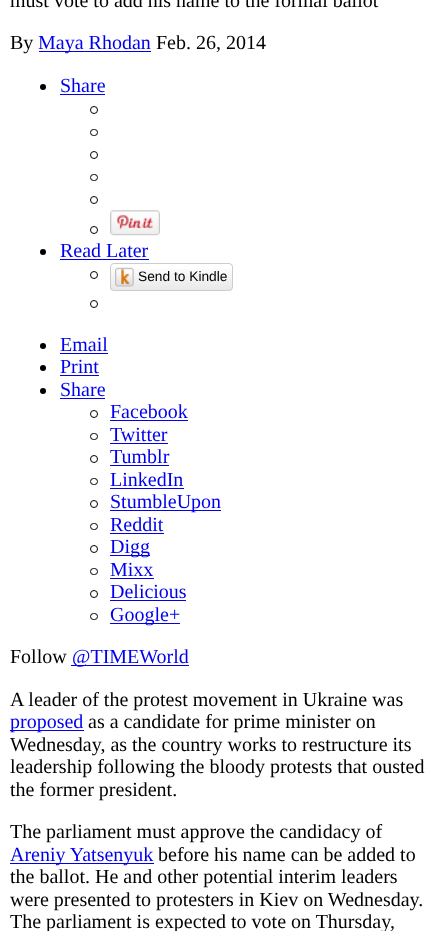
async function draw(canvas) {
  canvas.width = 446;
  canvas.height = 931;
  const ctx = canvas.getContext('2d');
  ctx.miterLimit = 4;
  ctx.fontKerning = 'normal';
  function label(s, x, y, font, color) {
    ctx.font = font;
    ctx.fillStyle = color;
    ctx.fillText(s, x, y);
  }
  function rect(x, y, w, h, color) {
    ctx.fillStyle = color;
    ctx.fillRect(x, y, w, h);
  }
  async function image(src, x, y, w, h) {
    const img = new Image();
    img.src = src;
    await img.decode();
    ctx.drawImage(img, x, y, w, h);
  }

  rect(0, 0, 446, 931, '#fff');
  label('must vote to add his name to the formal ballot', 10, 7, '20px Liberation Serif', '#000');
  label('By', 10, 49, '20px Liberation Serif', '#000');
  rect(39, 51, 112, 1, '#00e');
  label('Maya Rhodan', 38, 49, '20px Liberation Serif', '#00e');
  label('Feb. 26, 2014', 156, 49, '20px Liberation Serif', '#000');
  ctx.beginPath();
  ctx.arc(43, 87, 3, 0, 2 * Math.PI);
  ctx.fill();
  label('Share', 60, 92, '20px Liberation Serif', '#00e');
  rect(60, 94, 45, 1, '#00e');
  ctx.beginPath();
  ctx.arc(94, 110, 3.5, 0, 2 * Math.PI);
  ctx.strokeStyle = '#000';
  ctx.stroke();
  ctx.beginPath();
  ctx.roundRect(90.5, 129.5, 7, 6, 3);
  ctx.stroke();
  ctx.beginPath();
  ctx.arc(94, 155, 3.5, 0, 2 * Math.PI);
  ctx.stroke();
  ctx.beginPath();
  ctx.roundRect(90.5, 174.5, 7, 6, 3);
  ctx.stroke();
  ctx.beginPath();
  ctx.arc(94, 200, 3.5, 0, 2 * Math.PI);
  ctx.stroke();
  ctx.beginPath();
  ctx.arc(94, 230, 3.5, 0, 2 * Math.PI);
  ctx.stroke();
  await image('assets/img1.png', 110, 210, 50, 26);
  ctx.fillStyle = '#000';
  ctx.beginPath();
  ctx.arc(43, 252, 3, 0, 2 * Math.PI);
  ctx.fill();
  label('Read Later', 60, 257, '20px Liberation Serif', '#00e');
  rect(60, 259, 89, 1, '#00e');
  ctx.beginPath();
  ctx.arc(94, 275, 3.5, 0, 2 * Math.PI);
  ctx.stroke();
  await image('assets/img2.png', 110, 269, 123, 22);
  ctx.beginPath();
  ctx.roundRect(110.5, 263.5, 122, 27, 3.5);
  ctx.strokeStyle = '#ccc';
  ctx.stroke();
  await image('assets/img3.png', 115, 267, 19, 20);
  label('Send to Kindle', 138, 281, '13.75px Liberation Sans', '#000');
  ctx.beginPath();
  ctx.arc(94, 304, 3.5, 0, 2 * Math.PI);
  ctx.strokeStyle = '#000';
  ctx.stroke();
  ctx.beginPath();
  ctx.arc(43, 346, 3, 0, 2 * Math.PI);
  ctx.fill();
  label('Email', 60, 351, '20px Liberation Serif', '#00e');
  rect(60, 353, 48, 1, '#00e');
  ctx.fillStyle = '#000';
  ctx.beginPath();
  ctx.arc(43, 368, 3, 0, 2 * Math.PI);
  ctx.fill();
  label('Print', 60, 373, '20px Liberation Serif', '#00e');
  rect(60, 375, 39, 1, '#00e');
  ctx.fillStyle = '#000';
  ctx.beginPath();
  ctx.arc(43, 391, 3, 0, 2 * Math.PI);
  ctx.fill();
  label('Share', 60, 396, '20px Liberation Serif', '#00e');
  rect(60, 398, 45, 1, '#00e');
  ctx.beginPath();
  ctx.arc(94, 414, 3.5, 0, 2 * Math.PI);
  ctx.stroke();
  label('Facebook', 110, 418, '20px Liberation Serif', '#00e');
  rect(110, 420, 78, 1, '#00e');
  ctx.beginPath();
  ctx.roundRect(90.5, 433.5, 7, 6, 3);
  ctx.stroke();
  label('Twitter', 110, 441, '20px Liberation Serif', '#00e');
  rect(110, 443, 58, 1, '#00e');
  ctx.beginPath();
  ctx.arc(94, 459, 3.5, 0, 2 * Math.PI);
  ctx.stroke();
  label('Tumblr', 110, 463, '20px Liberation Serif', '#00e');
  rect(110, 465, 59, 1, '#00e');
  ctx.beginPath();
  ctx.roundRect(90.5, 478.5, 7, 6, 3);
  ctx.stroke();
  label('LinkedIn', 110, 486, '20px Liberation Serif', '#00e');
  rect(110, 488, 74, 1, '#00e');
  ctx.beginPath();
  ctx.arc(94, 504, 3.5, 0, 2 * Math.PI);
  ctx.stroke();
  rect(110, 510, 111, 1, '#00e');
  label('StumbleUpon', 110, 508, '20px Liberation Serif', '#00e');
  ctx.beginPath();
  ctx.roundRect(90.5, 523.5, 7, 6, 3);
  ctx.stroke();
  label('Reddit', 110, 531, '20px Liberation Serif', '#00e');
  rect(110, 533, 54, 1, '#00e');
  ctx.beginPath();
  ctx.arc(94, 549, 3.5, 0, 2 * Math.PI);
  ctx.stroke();
  rect(110, 555, 40, 1, '#00e');
  label('Digg', 110, 553, '20px Liberation Serif', '#00e');
  ctx.beginPath();
  ctx.roundRect(90.5, 568.5, 7, 6, 3);
  ctx.stroke();
  label('Mixx', 110, 576, '20px Liberation Serif', '#00e');
  rect(110, 578, 44, 1, '#00e');
  ctx.beginPath();
  ctx.arc(94, 594, 3.5, 0, 2 * Math.PI);
  ctx.stroke();
  label('Delicious', 110, 598, '20px Liberation Serif', '#00e');
  rect(110, 600, 76, 1, '#00e');
  ctx.beginPath();
  ctx.roundRect(90.5, 613.5, 7, 6, 3);
  ctx.stroke();
  rect(110, 623, 70, 1, '#00e');
  label('Google+', 110, 621, '20px Liberation Serif', '#00e');
  label('Follow', 10, 663, '20px Liberation Serif', '#000');
  rect(71, 665, 118, 1, '#00e');
  label('@TIMEWorld', 72, 663, '20px Liberation Serif', '#00e');
  label('A leader of the protest movement in Ukraine was', 10, 706, '20px Liberation Serif', '#000');
  rect(10, 730, 74, 1, '#00e');
  label('proposed', 10, 728, '20px Liberation Serif', '#00e');
  label('as a candidate for prime minister on', 88, 728, '20px Liberation Serif', '#000');
  label('Wednesday, as the country works to restructure its', 10, 751, '20px Liberation Serif', '#000');
  label('leadership following the bloody protests that ousted', 10, 773, '20px Liberation Serif', '#000');
  label('the former president.', 10, 796, '20px Liberation Serif', '#000');
  label('The parliament must approve the candidacy of', 10, 838, '20px Liberation Serif', '#000');
  rect(10, 863, 144, 1, '#00e');
  label('Areniy Yatsenyuk', 10, 861, '20px Liberation Serif', '#00e');
  label('before his name can be added to', 158, 861, '20px Liberation Serif', '#000');
  label('the ballot. He and other potential interim leaders', 10, 883, '20px Liberation Serif', '#000');
  label('were presented to protesters in Kiev on Wednesday.', 10, 906, '20px Liberation Serif', '#000');
  label('The parliament is expected to vote on Thursday,', 10, 928, '20px Liberation Serif', '#000');
}

draw(document.querySelector('canvas'));
